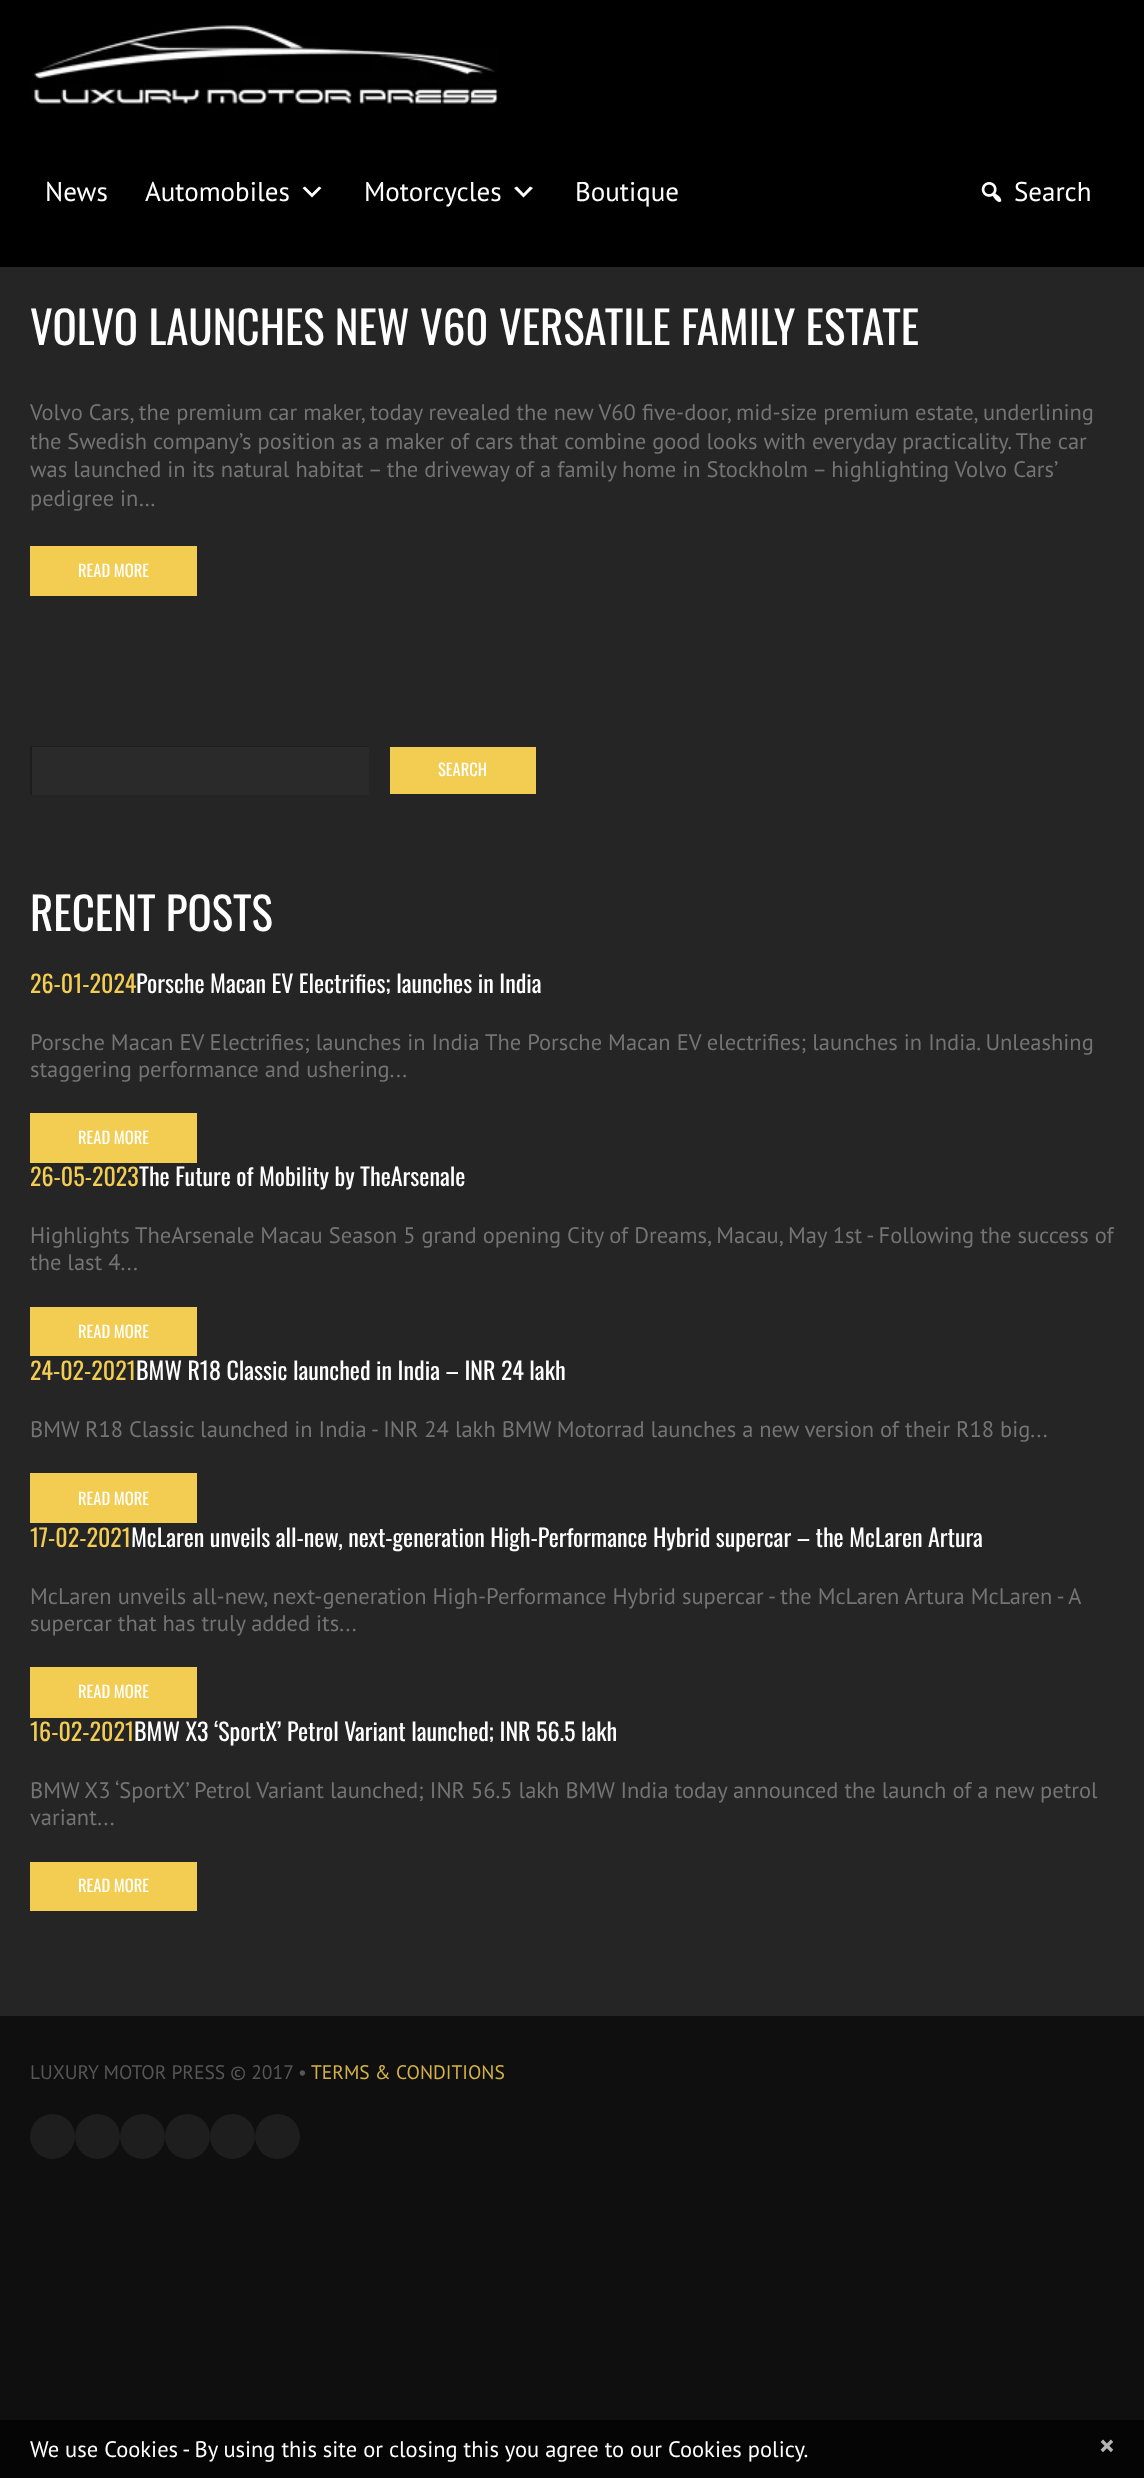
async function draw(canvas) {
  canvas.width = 1144;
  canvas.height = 2478;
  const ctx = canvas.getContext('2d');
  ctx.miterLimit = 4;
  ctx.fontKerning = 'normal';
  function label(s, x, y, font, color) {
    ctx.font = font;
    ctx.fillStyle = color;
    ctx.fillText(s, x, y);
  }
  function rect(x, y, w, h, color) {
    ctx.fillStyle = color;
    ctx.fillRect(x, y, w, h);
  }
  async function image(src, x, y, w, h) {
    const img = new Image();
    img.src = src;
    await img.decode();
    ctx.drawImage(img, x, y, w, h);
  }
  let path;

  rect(0, 0, 1144, 2478, '#0f0f0f');
  rect(0, 0, 1144, 267, '#000');
  await image('assets/img1.png', 30, 25, 468, 83);
  label('News', 45, 201, '27px PT Sans', '#fff');
  label('Automobiles', 145, 201, '27px PT Sans', '#fff');
  path = new Path2D('M305 186.5L312 193.5L319 186.5L321.5 188L312 197.5L302.5 188Z');
  ctx.fill(path);
  label('Motorcycles', 364, 201, '27px PT Sans', '#fff');
  path = new Path2D('M517 186.5L523.5 193.5L530 186.5L533 188L523.5 197.5L514 188Z');
  ctx.fill(path);
  label('Boutique', 575, 201, '27px PT Sans', '#fff');
  await image('assets/img2.png', 981, 182, 21, 20);
  label('Search', 1014, 201, '27px PT Sans', '#fff');
  rect(0, 267, 1144, 1749, '#252525');
  label('VOLVO LAUNCHES NEW V60 VERSATILE FAMILY ESTATE', 30, 345, '45px Oswald', '#fff');
  label('Volvo Cars, the premium car maker, today revealed the new V60 five-door, mid-size premium estate, underlining', 30, 420, '22.5px PT Sans', '#747474');
  label('the Swedish company’s position as a maker of cars that combine good looks with everyday practicality. The car', 30, 449, '22.5px PT Sans', '#747474');
  label('was launched in its natural habitat – the driveway of a family home in Stockholm – highlighting Volvo Cars’', 30, 477, '22.5px PT Sans', '#747474');
  label('pedigree in…', 30, 506, '22.5px PT Sans', '#747474');
  rect(30, 546, 167, 50, '#f3cc52');
  label('READ MORE', 78, 577, '16.5px Oswald', '#fff');
  rect(32, 747, 337, 48, '#2a2a2a');
  ctx.save();
  ctx.beginPath();
  ctx.rect(30, 746, 339, 49);
  ctx.clip();
  ctx.fillStyle = '#1d1d1d';
  path = new Path2D('M-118 597H518V944H-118ZM32 747H370V796H32Z');
  ctx.fill(path, 'evenodd');
  ctx.restore();
  rect(390, 747, 146, 47, '#f3cc52');
  label('SEARCH', 438, 776, '16.5px Oswald', '#fff');
  label('RECENT POSTS', 30, 931, '45px Oswald', '#fff');
  label('26-01-2024', 30, 993, '24px Oswald', '#f3cc52');
  label('Porsche Macan EV Electrifies; launches in India', 136, 993, '24px Oswald', '#fff');
  label('Porsche Macan EV Electrifies; launches in India The Porsche Macan EV electrifies; launches in India. Unleashing', 30, 1050, '22.5px PT Sans', '#747474');
  label('staggering performance and ushering...', 30, 1077, '22.5px PT Sans', '#747474');
  rect(30, 1113, 167, 50, '#f3cc52');
  label('READ MORE', 78, 1144, '16.5px Oswald', '#fff');
  label('26-05-2023', 30, 1186, '24px Oswald', '#f3cc52');
  label('The Future of Mobility by TheArsenale', 139, 1186, '24px Oswald', '#fff');
  label('Highlights TheArsenale Macau Season 5 grand opening City of Dreams, Macau, May 1st - Following the success of', 30, 1243, '22.5px PT Sans', '#747474');
  label('the last 4...', 30, 1270, '22.5px PT Sans', '#747474');
  rect(30, 1307, 167, 49, '#f3cc52');
  label('READ MORE', 78, 1338, '16.5px Oswald', '#fff');
  label('24-02-2021', 30, 1380, '24px Oswald', '#f3cc52');
  label('BMW R18 Classic launched in India – INR 24 lakh', 136, 1380, '24px Oswald', '#fff');
  label('BMW R18 Classic launched in India - INR 24 lakh BMW Motorrad launches a new version of their R18 big...', 30, 1437, '22.5px PT Sans', '#747474');
  rect(30, 1473, 167, 50, '#f3cc52');
  label('READ MORE', 78, 1505, '16.5px Oswald', '#fff');
  label('17-02-2021', 30, 1547, '24px Oswald', '#f3cc52');
  label('McLaren unveils all-new, next-generation High-Performance Hybrid supercar – the McLaren Artura', 131, 1547, '24px Oswald', '#fff');
  label('McLaren unveils all-new, next-generation High-Performance Hybrid supercar - the McLaren Artura McLaren - A', 30, 1604, '22.5px PT Sans', '#747474');
  label('supercar that has truly added its...', 30, 1631, '22.5px PT Sans', '#747474');
  rect(30, 1667, 167, 51, '#f3cc52');
  label('READ MORE', 78, 1698, '16.5px Oswald', '#fff');
  label('16-02-2021', 30, 1741, '24px Oswald', '#f3cc52');
  label('BMW X3 ‘SportX’ Petrol Variant launched; INR 56.5 lakh', 134, 1741, '24px Oswald', '#fff');
  label('BMW X3 ‘SportX’ Petrol Variant launched; INR 56.5 lakh BMW India today announced the launch of a new petrol', 30, 1798, '22.5px PT Sans', '#747474');
  label('variant...', 30, 1825, '22.5px PT Sans', '#747474');
  rect(30, 1862, 167, 49, '#f3cc52');
  label('READ MORE', 78, 1892, '16.5px Oswald', '#fff');
  label('LUXURY MOTOR PRESS © 2017 •', 30, 2079, '19.5px PT Sans', '#565656');
  label('TERMS & CONDITIONS', 311, 2079, '19.5px PT Sans', '#d4b248');
  ctx.fillStyle = '#1e1e1e';
  ctx.beginPath();
  ctx.arc(52.5, 2136.5, 22.5, 0, 2 * Math.PI);
  ctx.fill();
  ctx.beginPath();
  ctx.arc(97.5, 2136.5, 22.5, 0, 2 * Math.PI);
  ctx.fill();
  ctx.beginPath();
  ctx.arc(142.5, 2136.5, 22.5, 0, 2 * Math.PI);
  ctx.fill();
  ctx.beginPath();
  ctx.arc(187.5, 2136.5, 22.5, 0, 2 * Math.PI);
  ctx.fill();
  ctx.beginPath();
  ctx.arc(232.5, 2136.5, 22.5, 0, 2 * Math.PI);
  ctx.fill();
  ctx.beginPath();
  ctx.arc(277.5, 2136.5, 22.5, 0, 2 * Math.PI);
  ctx.fill();
  rect(0, 2420, 1144, 58, '#050505');
  label('We use Cookies - By using this site or closing this you agree to our Cookies policy.', 30, 2457, '22.5px PT Sans', '#fff');
  label('×', 1099, 2456, 'bold 30px PT Sans', '#b4b4b4');
}

draw(document.querySelector('canvas'));
